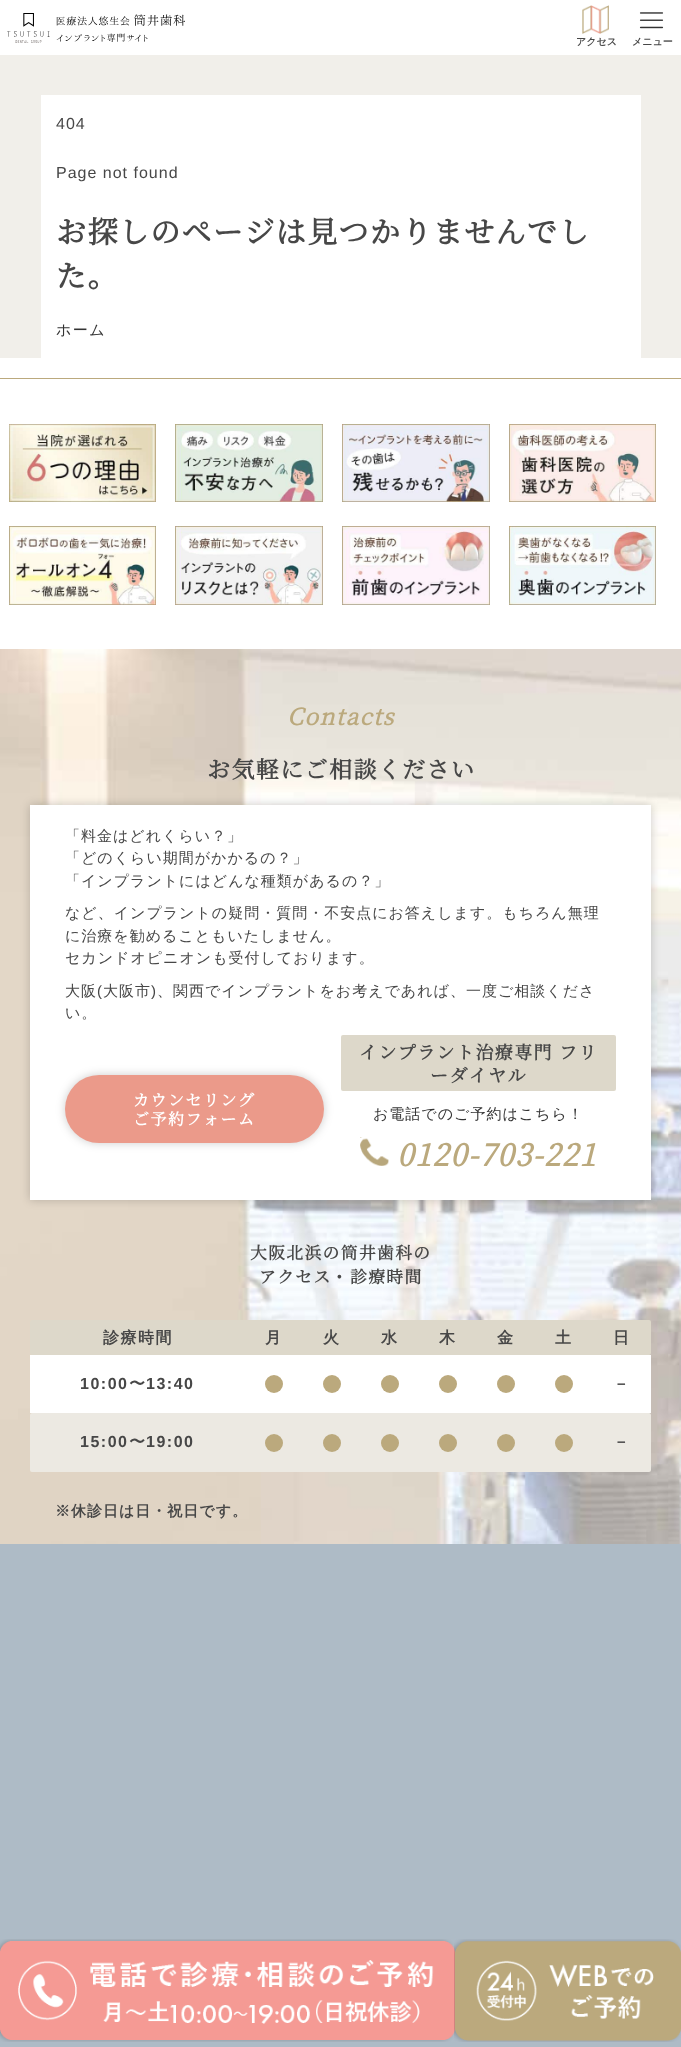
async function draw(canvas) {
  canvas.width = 681;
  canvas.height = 2047;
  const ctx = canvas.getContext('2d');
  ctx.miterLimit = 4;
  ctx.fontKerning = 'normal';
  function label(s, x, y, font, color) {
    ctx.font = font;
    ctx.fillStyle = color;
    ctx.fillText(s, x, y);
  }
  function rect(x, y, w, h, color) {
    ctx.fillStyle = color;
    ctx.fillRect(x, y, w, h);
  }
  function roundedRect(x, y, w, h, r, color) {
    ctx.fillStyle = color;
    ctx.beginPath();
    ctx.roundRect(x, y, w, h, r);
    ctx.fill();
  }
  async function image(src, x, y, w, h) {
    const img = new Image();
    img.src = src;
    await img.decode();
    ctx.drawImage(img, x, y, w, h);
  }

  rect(0, 0, 681, 2047, '#f1efea');
  rect(0, 0, 681, 55, '#fff');
  await image('assets/img1.png', 7, 13, 178, 30);
  await image('assets/img2.png', 582, 5, 27, 29);
  label('アクセス', 576, 45, 'bold 10px WenQuanYi Zen Hei', '#474747');
  await image('assets/img3.png', 639, 12, 25, 17);
  label('メニュー', 632, 45, 'bold 10px WenQuanYi Zen Hei', '#474747');
  rect(41, 95, 600, 263, '#fff');
  ctx.letterSpacing = '1px';
  label('404', 56, 129, '16px Liberation Sans', '#474747');
  label('Page not found', 56, 178, '16px Liberation Sans', '#474747');
  ctx.letterSpacing = '1.4px';
  label('お探しのページは見つかりませんでし', 56, 243, 'bold 30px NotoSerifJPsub', '#474747');
  label('た。', 56, 287, 'bold 30px NotoSerifJPsub', '#474747');
  ctx.letterSpacing = '1.5px';
  label('ホーム', 56, 335, '500 15px WenQuanYi Zen Hei', '#333');
  rect(0, 358, 681, 291, '#fff');
  rect(0, 378, 681, 1, '#bba97d');
  await image('assets/img4.png', 9, 424, 147, 78);
  await image('assets/img5.png', 175, 424, 148, 78);
  await image('assets/img6.png', 342, 424, 148, 78);
  await image('assets/img7.png', 509, 424, 147, 78);
  await image('assets/img8.png', 9, 526, 147, 79);
  await image('assets/img9.png', 175, 526, 148, 79);
  await image('assets/img10.png', 342, 526, 148, 79);
  await image('assets/img11.png', 509, 526, 147, 79);
  await image('assets/img12.png', 0, 649, 681, 895);
  ctx.letterSpacing = '1.4px';
  label('Contacts', 287, 725, 'italic bold 23px NotoSerifJPsub', '#bba97d');
  label('お気軽にご相談ください', 207, 778, 'bold 23px NotoSerifJPsub', '#474747');
  ctx.fillStyle = '#00000033';
  ctx.filter = 'blur(5px)';
  ctx.beginPath();
  ctx.rect(30, 805, 621, 395);
  ctx.fill();
  ctx.filter = 'none';
  rect(30, 805, 621, 395, '#fff');
  ctx.letterSpacing = '1px';
  label('「料金はどれくらい？」', 65, 841, '500 15px WenQuanYi Zen Hei', '#474747');
  label('「どのくらい期間がかかるの？」', 65, 863, '500 15px WenQuanYi Zen Hei', '#474747');
  label('「インプラントにはどんな種類があるの？」', 65, 886, '500 15px WenQuanYi Zen Hei', '#474747');
  label('など、インプラントの疑問・質問・不安点にお答えします。もちろん無理', 65, 918, '500 15px WenQuanYi Zen Hei', '#474747');
  label('に治療を勧めることもいたしません。', 65, 941, '500 15px WenQuanYi Zen Hei', '#474747');
  label('セカンドオピニオンも受付しております。', 65, 963, '500 15px WenQuanYi Zen Hei', '#474747');
  label('大阪', 65, 996, '500 15px WenQuanYi Zen Hei', '#474747');
  label('(', 97, 996, '15px Liberation Sans', '#474747');
  label('大阪市', 103, 996, '500 15px WenQuanYi Zen Hei', '#474747');
  label(')', 151, 996, '15px Liberation Sans', '#474747');
  label('、関西でインプラントをお考えであれば、一度ご相談くださ', 157, 996, '500 15px WenQuanYi Zen Hei', '#474747');
  label('い。', 65, 1018, '500 15px WenQuanYi Zen Hei', '#474747');
  ctx.fillStyle = '#00000033';
  ctx.filter = 'blur(5px)';
  ctx.beginPath();
  ctx.roundRect(65, 1075, 259, 68, 34);
  ctx.fill();
  ctx.filter = 'none';
  roundedRect(65, 1075, 259, 68, 34, '#eb9a8a');
  ctx.letterSpacing = '1.5px';
  label('カウンセリング', 133, 1106, 'bold 16px NotoSerifJPsub', '#fff');
  label('ご予約フォーム', 133, 1125, 'bold 16px NotoSerifJPsub', '#fff');
  roundedRect(341, 1035, 275, 56, 2, '#ddd8ca');
  ctx.letterSpacing = '1.4px';
  label('インプラント治療専門 フリ', 359, 1059, 'bold 18px NotoSerifJPsub', '#474747');
  label('ーダイヤル', 430, 1082, 'bold 18px NotoSerifJPsub', '#474747');
  ctx.letterSpacing = '1px';
  label('お電話でのご予約はこちら！', 373, 1119, '500 15px WenQuanYi Zen Hei', '#333');
  await image('assets/img13.png', 360, 1137, 29, 29);
  ctx.letterSpacing = '1.5px';
  label('0120-703-221', 397, 1166, 'italic bold 30px NotoSerifJPsub', '#bba97d');
  ctx.letterSpacing = '1.4px';
  label('大阪北浜の筒井歯科の', 250, 1259, 'bold 16.75px NotoSerifJPsub', '#474747');
  label('アクセス', 259, 1283, 'bold 16.75px NotoSerifJPsub', '#474747');
  label('・', 331, 1283, 'bold 16.75px Noto Serif JP', '#474747');
  label('診療時間', 350, 1283, 'bold 16.75px NotoSerifJPsub', '#474747');
  roundedRect(30, 1320, 621, 35, 2, '#ddd8ca');
  ctx.letterSpacing = '1.5px';
  label('診療時間', 103, 1343, 'bold 16px WenQuanYi Zen Hei', '#474747');
  label('月', 265, 1343, 'bold 16px WenQuanYi Zen Hei', '#474747');
  label('火', 323, 1343, 'bold 16px WenQuanYi Zen Hei', '#474747');
  label('水', 381, 1343, 'bold 16px WenQuanYi Zen Hei', '#474747');
  label('木', 439, 1343, 'bold 16px WenQuanYi Zen Hei', '#474747');
  label('金', 497, 1343, 'bold 16px WenQuanYi Zen Hei', '#474747');
  label('土', 555, 1343, 'bold 16px WenQuanYi Zen Hei', '#474747');
  label('日', 613, 1343, 'bold 16px WenQuanYi Zen Hei', '#474747');
  rect(30, 1355, 621, 58, '#fff');
  label('10:00', 80, 1389, 'bold 16px Liberation Sans', '#474747');
  label('〜', 129, 1389, 'bold 16px WenQuanYi Zen Hei', '#474747');
  label('13:40', 146, 1389, 'bold 16px Liberation Sans', '#474747');
  ctx.fillStyle = '#bba97d';
  ctx.beginPath();
  ctx.arc(274, 1384, 9, 0, 2 * Math.PI);
  ctx.fill();
  ctx.beginPath();
  ctx.arc(332, 1384, 9, 0, 2 * Math.PI);
  ctx.fill();
  ctx.beginPath();
  ctx.arc(390, 1384, 9, 0, 2 * Math.PI);
  ctx.fill();
  ctx.beginPath();
  ctx.arc(448, 1384, 9, 0, 2 * Math.PI);
  ctx.fill();
  ctx.beginPath();
  ctx.arc(506, 1384, 9, 0, 2 * Math.PI);
  ctx.fill();
  ctx.beginPath();
  ctx.arc(564, 1384, 9, 0, 2 * Math.PI);
  ctx.fill();
  label('－', 613, 1389, 'bold 16px WenQuanYi Zen Hei', '#474747');
  roundedRect(30, 1413, 621, 59, 2, '#ece9e2');
  label('15:00', 80, 1447, 'bold 16px Liberation Sans', '#474747');
  label('〜', 129, 1447, 'bold 16px WenQuanYi Zen Hei', '#474747');
  label('19:00', 146, 1447, 'bold 16px Liberation Sans', '#474747');
  ctx.fillStyle = '#bba97d';
  ctx.beginPath();
  ctx.arc(274, 1443, 9, 0, 2 * Math.PI);
  ctx.fill();
  ctx.beginPath();
  ctx.arc(332, 1443, 9, 0, 2 * Math.PI);
  ctx.fill();
  ctx.beginPath();
  ctx.arc(390, 1443, 9, 0, 2 * Math.PI);
  ctx.fill();
  ctx.beginPath();
  ctx.arc(448, 1443, 9, 0, 2 * Math.PI);
  ctx.fill();
  ctx.beginPath();
  ctx.arc(506, 1443, 9, 0, 2 * Math.PI);
  ctx.fill();
  ctx.beginPath();
  ctx.arc(564, 1443, 9, 0, 2 * Math.PI);
  ctx.fill();
  label('－', 613, 1447, 'bold 16px WenQuanYi Zen Hei', '#474747');
  ctx.letterSpacing = '1px';
  label('※休診日は日・祝日です。', 55, 1516, 'bold 15px WenQuanYi Zen Hei', '#474747');
  rect(0, 1544, 681, 503, '#aebbc6');
  await image('assets/img14.png', 0, 1939, 456, 103);
  await image('assets/img15.png', 454, 1939, 227, 103);
}

draw(document.querySelector('canvas'));
